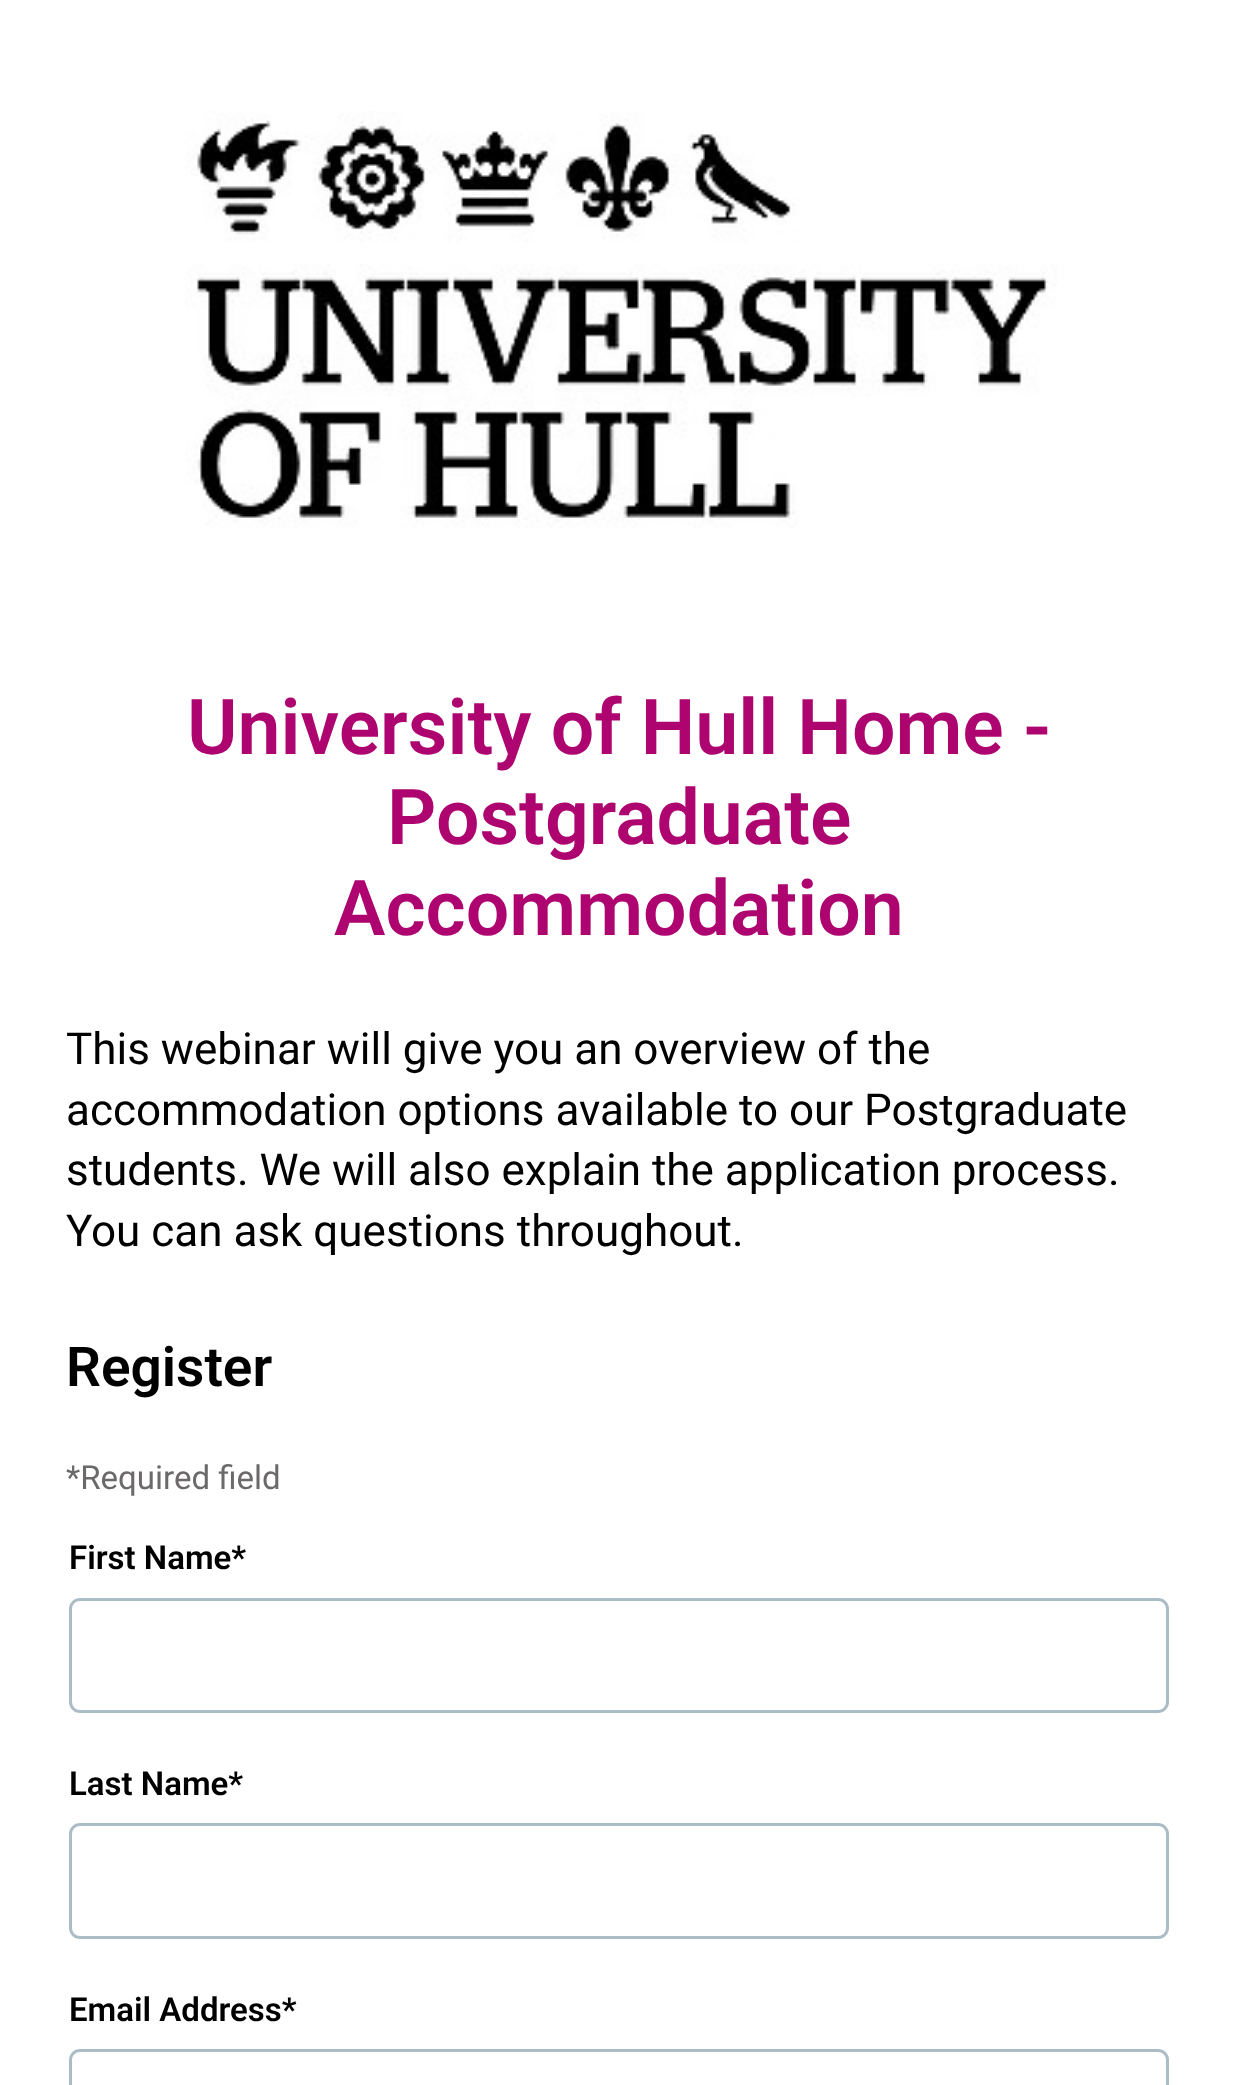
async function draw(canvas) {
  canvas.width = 1236;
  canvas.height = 2085;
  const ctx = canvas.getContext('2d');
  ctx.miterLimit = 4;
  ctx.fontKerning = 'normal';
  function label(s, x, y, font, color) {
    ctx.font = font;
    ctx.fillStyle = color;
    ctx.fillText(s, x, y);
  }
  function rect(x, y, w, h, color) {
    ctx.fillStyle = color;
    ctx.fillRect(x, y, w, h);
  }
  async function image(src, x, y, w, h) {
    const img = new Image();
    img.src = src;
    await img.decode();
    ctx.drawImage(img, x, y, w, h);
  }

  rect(0, 0, 1236, 2085, '#fff');
  await image('assets/img1.png', 185, 111, 873, 417);
  label('University of Hull Home -', 187, 754, '600 77px Roboto', '#ad0470');
  label('Postgraduate', 387, 844, '600 77px Roboto', '#ad0470');
  label('Accommodation', 334, 935, '600 77px Roboto', '#ad0470');
  label('This webinar will give you an overview of the', 66, 1064, '44px Roboto', '#000');
  label('accommodation options available to our Postgraduate', 66, 1125, '44px Roboto', '#000');
  label('students. We will also explain the application process.', 66, 1185, '44px Roboto', '#000');
  label('You can ask questions throughout.', 66, 1246, '44px Roboto', '#000');
  label('Register', 66, 1386, '600 55px Roboto', '#000');
  label('*Required field', 66, 1489, '33px Roboto', '#6b6969');
  label('First Name*', 69, 1569, '600 33px Roboto', '#000');
  ctx.beginPath();
  ctx.roundRect(70.5, 1599.5, 1097, 112, 9.5);
  ctx.strokeStyle = '#acbcc7';
  ctx.lineWidth = 3;
  ctx.stroke();
  label('Last Name*', 69, 1795, '600 33px Roboto', '#000');
  ctx.beginPath();
  ctx.roundRect(70.5, 1824.5, 1097, 113, 9.5);
  ctx.stroke();
  label('Email Address*', 69, 2021, '600 33px Roboto', '#000');
  ctx.beginPath();
  ctx.roundRect(70.5, 2050.5, 1097, 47, 9.5);
  ctx.stroke();
}

draw(document.querySelector('canvas'));
